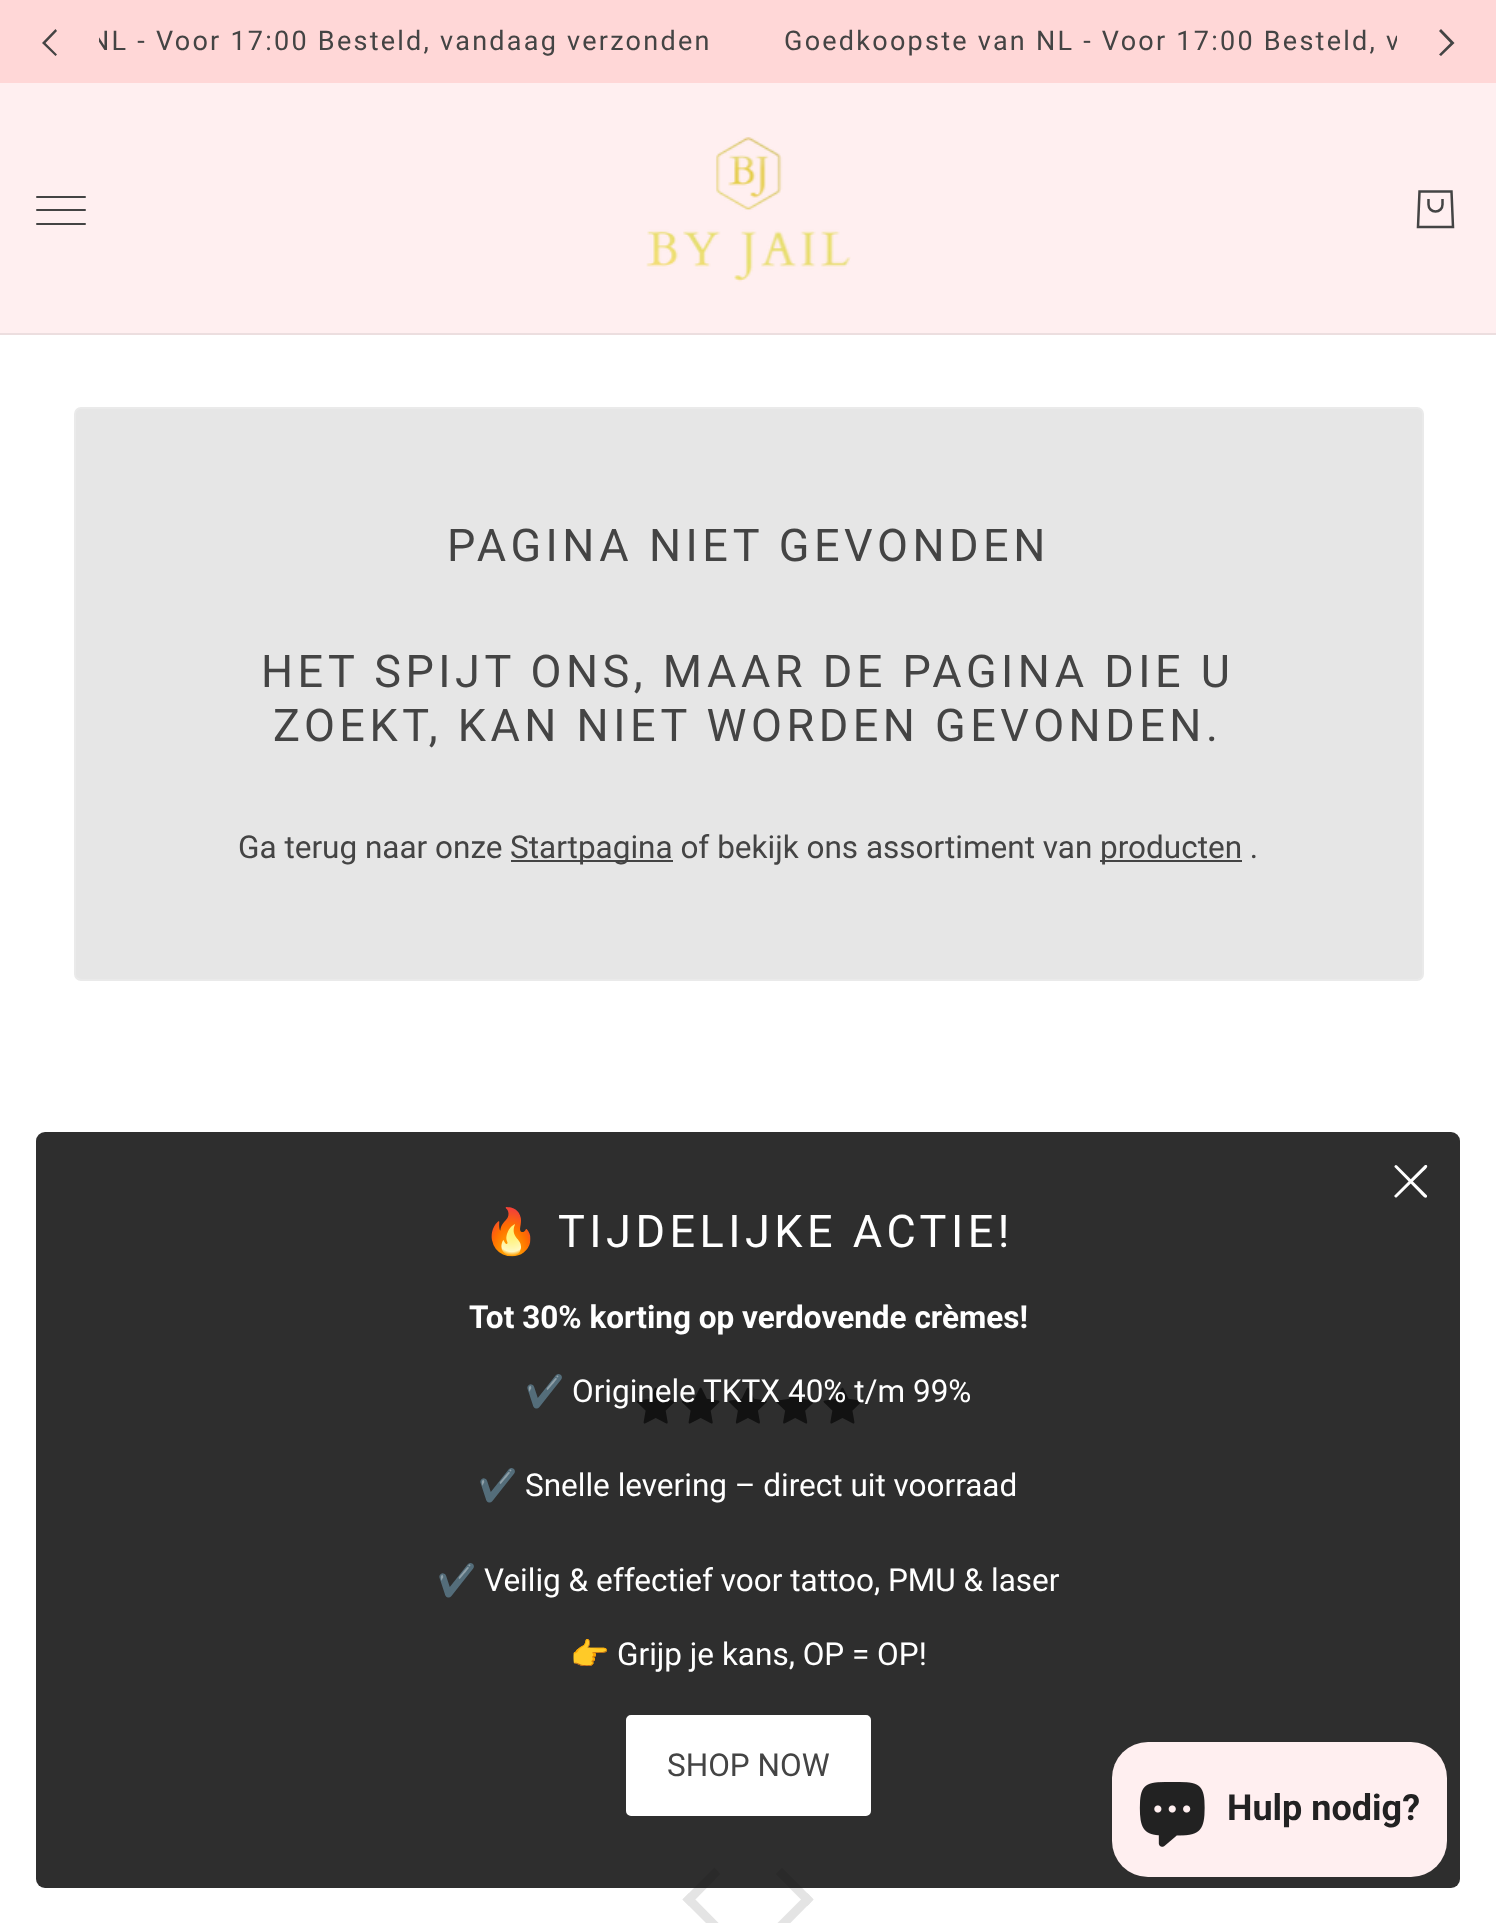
async function draw(canvas) {
  canvas.width = 1496;
  canvas.height = 1923;
  const ctx = canvas.getContext('2d');
  ctx.miterLimit = 4;
  ctx.fontKerning = 'normal';
  function label(s, x, y, font, color) {
    ctx.font = font;
    ctx.fillStyle = color;
    ctx.fillText(s, x, y);
  }
  function rect(x, y, w, h, color) {
    ctx.fillStyle = color;
    ctx.fillRect(x, y, w, h);
  }
  function roundedRect(x, y, w, h, r, color) {
    ctx.fillStyle = color;
    ctx.beginPath();
    ctx.roundRect(x, y, w, h, r);
    ctx.fill();
  }
  async function image(src, x, y, w, h) {
    const img = new Image();
    img.src = src;
    await img.decode();
    ctx.drawImage(img, x, y, w, h);
  }
  let path;

  rect(0, 0, 1496, 1923, '#fff');
  rect(0, 0, 1496, 83, '#ffd7d7');
  ctx.fillStyle = '#444';
  path = new Path2D('M45.5 43L57 54.5L55.5 56L42 43L55.5 29L57 31Z');
  ctx.fill(path);
  ctx.save();
  ctx.beginPath();
  ctx.rect(99, 18, 1298, 47);
  ctx.clip();
  ctx.letterSpacing = '2.25px';
  label('NL - Voor 17:00 Besteld, vandaag verzonden', 90, 50, '27px Roboto', '#444');
  label('Goedkoopste van NL - Voor 17:00 Besteld, v', 784, 50, '27px Roboto', '#444');
  ctx.restore();
  path = new Path2D('M1450.5 43L1439 31L1441 29L1454.5 43L1441 56L1439 54.5Z');
  ctx.fill(path);
  rect(0, 83, 1496, 250, '#ffeff0');
  roundedRect(36, 196, 50, 2, 1, '#444');
  roundedRect(36, 209, 50, 2, 1, '#444');
  roundedRect(36, 223, 50, 2, 1, '#444');
  await image('assets/img1.png', 646, 137, 205, 145);
  path = new Path2D('M1453 227H1418L1419.5 191.5H1451.5ZM1428.5 199V204.5C1428.5 208.5 1431.5 211.5 1435.5 211.5C1439.5 211.5 1442.5 208.5 1442.5 204.5V199');
  ctx.strokeStyle = '#444';
  ctx.lineWidth = 2.5;
  ctx.stroke(path);
  rect(0, 333, 1496, 2, '#ecdedf');
  ctx.fillStyle = '#e6e6e6';
  ctx.beginPath();
  ctx.roundRect(75, 408, 1348, 572, 6);
  ctx.fill();
  ctx.strokeStyle = '#eaeaea';
  ctx.lineWidth = 2;
  ctx.stroke();
  ctx.letterSpacing = '4.5px';
  label('PAGINA NIET GEVONDEN', 447, 561, '45px Roboto', '#444');
  label('HET SPIJT ONS, MAAR DE PAGINA DIE U', 261, 687, '45px Roboto', '#444');
  label('ZOEKT, KAN NIET WORDEN GEVONDEN.', 273, 741, '45px Roboto', '#444');
  ctx.letterSpacing = '0px';
  label('Ga terug naar onze', 238, 858, '31.5px Roboto', '#444');
  rect(511, 860, 162, 2, '#444');
  label('Startpagina of bekijk ons assortiment van', 510, 858, '31.5px Roboto', '#444');
  rect(1100, 860, 142, 2, '#444');
  label('producten .', 1100, 858, '31.5px Roboto', '#444');
  await image('assets/img2.png', 636, 1387, 39, 37);
  await image('assets/img2.png', 681, 1387, 39, 37);
  await image('assets/img3.png', 729, 1387, 38, 37);
  await image('assets/img4.png', 776, 1387, 38, 37);
  await image('assets/img5.png', 823, 1387, 39, 37);
  ctx.fillStyle = '#e4e4e4';
  path = new Path2D('M682.5 1899.5L714.5 1867.5L720.5 1874L689 1906Z');
  ctx.fill(path);
  path = new Path2D('M775.5 1874L782 1867.5L813.5 1899.5L807.5 1906Z');
  ctx.fill(path);
  roundedRect(36, 1132, 1424, 756, 9, '#090909d9');
  ctx.fillStyle = '#fff';
  path = new Path2D('M1397 1165.5L1427 1195.5V1197C1425 1199.5 1422 1195 1419.5 1192.5L1394.5 1167C1394 1165.5 1396 1164 1397 1165.5Z');
  ctx.fill(path);
  path = new Path2D('M1395 1195L1425 1165H1426.5C1429 1167 1424.5 1170 1422 1172.5L1396.5 1197.5C1395 1198 1393.5 1196 1395 1195Z');
  ctx.fill(path);
  ctx.letterSpacing = '4.5px';
  label('🔥', 483, 1247, '45px Noto Color Emoji', '#fff');
  label('TIJDELIJKE ACTIE!', 558, 1247, '45px Roboto', '#fff');
  ctx.letterSpacing = '0px';
  label('Tot 30% korting op verdovende crèmes!', 469, 1328, 'bold 31.5px Roboto', '#fff');
  label('✔️', 525, 1402, '31.5px Noto Color Emoji', '#fff');
  label('Originele TKTX 40% t/m 99%', 572, 1402, '31.5px Roboto', '#fff');
  label('✔️', 478, 1496, '31.5px Noto Color Emoji', '#fff');
  label('Snelle levering – direct uit voorraad', 525, 1496, '31.5px Roboto', '#fff');
  label('✔️', 437, 1591, '31.5px Noto Color Emoji', '#fff');
  label('Veilig & effectief voor tattoo, PMU & laser', 484, 1591, '31.5px Roboto', '#fff');
  label('👉', 570, 1665, '31.5px Noto Color Emoji', '#fff');
  label('Grijp je kans, OP = OP!', 617, 1665, '31.5px Roboto', '#fff');
  ctx.beginPath();
  ctx.roundRect(628.5, 1717.5, 240, 96, 2.5);
  ctx.fill();
  ctx.strokeStyle = '#fff';
  ctx.lineWidth = 5;
  ctx.stroke();
  label('SHOP NOW', 667, 1776, '31.5px Roboto', '#444');
  ctx.fillStyle = '#e4e4e4';
  path = new Path2D('M682.5 1899.5L689 1893L720.5 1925L714.5 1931.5Z');
  ctx.fill(path);
  path = new Path2D('M775.5 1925L807.5 1893L813.5 1899.5L782 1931.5Z');
  ctx.fill(path);
  roundedRect(1112, 1742, 335, 135, 36, '#ffeff0');
  await image('assets/img6.png', 1139, 1782, 66, 65);
  label('Hulp nodig?', 1227, 1820, 'bold 36px Roboto', '#222');
}

draw(document.querySelector('canvas'));
